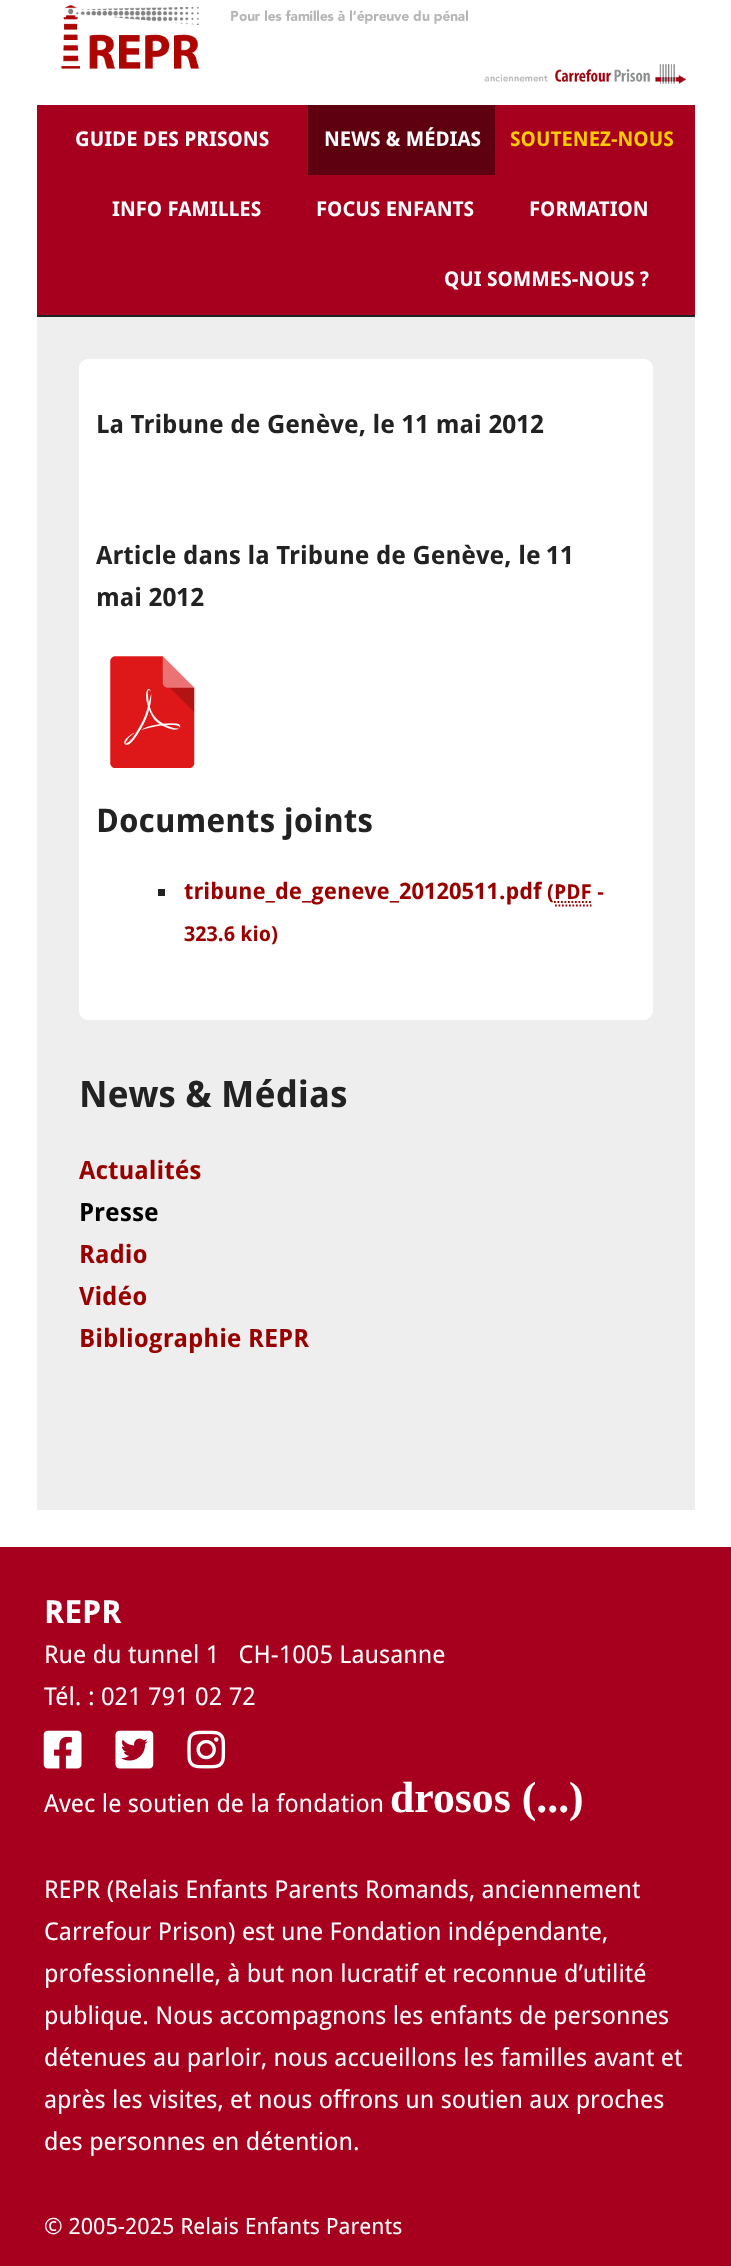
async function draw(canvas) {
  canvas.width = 731;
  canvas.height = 2266;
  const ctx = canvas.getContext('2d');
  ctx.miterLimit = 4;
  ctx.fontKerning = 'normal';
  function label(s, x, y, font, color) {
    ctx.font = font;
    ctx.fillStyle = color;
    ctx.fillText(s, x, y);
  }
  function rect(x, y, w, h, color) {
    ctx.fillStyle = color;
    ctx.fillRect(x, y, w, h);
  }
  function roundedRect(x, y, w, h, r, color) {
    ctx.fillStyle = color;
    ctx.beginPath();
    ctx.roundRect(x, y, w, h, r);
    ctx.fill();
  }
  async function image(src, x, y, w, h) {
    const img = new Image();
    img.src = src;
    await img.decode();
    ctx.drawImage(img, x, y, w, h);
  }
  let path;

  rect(0, 0, 731, 2266, '#a7001f');
  rect(0, 0, 731, 1547, '#fff');
  await image('assets/img1.png', 61, 5, 625, 79);
  rect(37, 105, 658, 210, '#a7001f');
  rect(37, 315, 658, 2, '#222');
  label('GUIDE DES PRISONS', 75, 146, 'bold 20.25px Droid Sans', '#fff');
  rect(308, 105, 187, 70, '#5e000f');
  label('NEWS & MÉDIAS', 324, 146, 'bold 20.25px Droid Sans', '#fff');
  label('SOUTENEZ-NOUS', 510, 146, 'bold 20.25px Droid Sans', '#fc0');
  label('INFO FAMILLES', 112, 216, 'bold 20.25px Droid Sans', '#fff');
  label('FOCUS ENFANTS', 316, 216, 'bold 20.25px Droid Sans', '#fff');
  label('FORMATION', 529, 216, 'bold 20.25px Droid Sans', '#fff');
  label('QUI SOMMES-NOUS ?', 444, 286, 'bold 20.25px Droid Sans', '#fff');
  rect(37, 317, 658, 1193, '#eee');
  roundedRect(79, 359, 574, 661, 9, '#fff');
  label('La Tribune de Genève, le 11 mai 2012', 96, 433, 'bold 25.25px Droid Sans', '#222');
  label('Article dans la Tribune de Genève, le', 96, 564, 'bold 25.25px Droid Sans', '#222');
  label('11', 546, 564, 'bold 25.25px Droid Sans', '#222');
  label('mai 2012', 96, 606, 'bold 25.25px Droid Sans', '#222');
  await image('assets/img2.png', 110, 656, 85, 112);
  label('Documents joints', 96, 832, 'bold 32.75px Droid Sans', '#222');
  rect(158, 889, 7, 7, '#222');
  label('tribune_de_geneve_20120511.pdf', 184, 899, 'bold 22.7px Droid Sans', '#900');
  label('(PDF -', 547, 899, 'bold 20.5px Droid Sans', '#900');
  path = new Path2D('M555 905.5H591.5M554 902H591.5');
  ctx.strokeStyle = '#900';
  ctx.lineWidth = 1.8;
  ctx.setLineDash([1.75, 1.75]);
  ctx.stroke(path);
  label('323.6 kio)', 184, 941, 'bold 20.5px Droid Sans', '#900');
  label('News & Médias', 79, 1107, 'bold 36.5px Droid Sans', '#222');
  label('Actualités', 79, 1179, 'bold 25.25px Droid Sans', '#900');
  label('Presse', 79, 1221, 'bold 25.25px Droid Sans', '#000');
  label('Radio', 79, 1263, 'bold 25.25px Droid Sans', '#900');
  label('Vidéo', 79, 1305, 'bold 25.25px Droid Sans', '#900');
  label('Bibliographie REPR', 79, 1347, 'bold 25.25px Droid Sans', '#900');
  label('REPR', 44, 1623, 'bold 32px Droid Sans', '#fff');
  label('Rue du tunnel 1   CH-1005 Lausanne', 44, 1663, '24.65px Droid Sans', '#fff');
  label('Tél. : 021 791 02 72', 44, 1705, '24.65px Droid Sans', '#fff');
  await image('assets/img3.png', 43, 1730, 39, 39);
  await image('assets/img4.png', 115, 1730, 39, 39);
  await image('assets/img5.png', 187, 1730, 39, 39);
  label('Avec le soutien de la fondation', 44, 1812, '24.65px Droid Sans', '#fff');
  label('drosos (...)', 390, 1812, 'bold 43.75px Liberation Serif', '#fff');
  label('REPR (Relais Enfants Parents Romands, anciennement', 44, 1898, '24.65px Droid Sans', '#fff');
  label('Carrefour Prison) est une Fondation indépendante,', 44, 1940, '24.65px Droid Sans', '#fff');
  label('professionnelle, à but non lucratif et reconnue d’utilité', 44, 1982, '24.65px Droid Sans', '#fff');
  label('publique. Nous accompagnons les enfants de personnes', 44, 2024, '24.65px Droid Sans', '#fff');
  label('détenues au parloir, nous accueillons les familles avant et', 44, 2066, '24.65px Droid Sans', '#fff');
  label('après les visites, et nous offrons un soutien aux proches', 44, 2108, '24.65px Droid Sans', '#fff');
  label('des personnes en détention.', 44, 2150, '24.65px Droid Sans', '#fff');
  label('© 2005-2025 Relais Enfants Parents', 44, 2234, '22.4px Droid Sans', '#fff');
}

draw(document.querySelector('canvas'));
